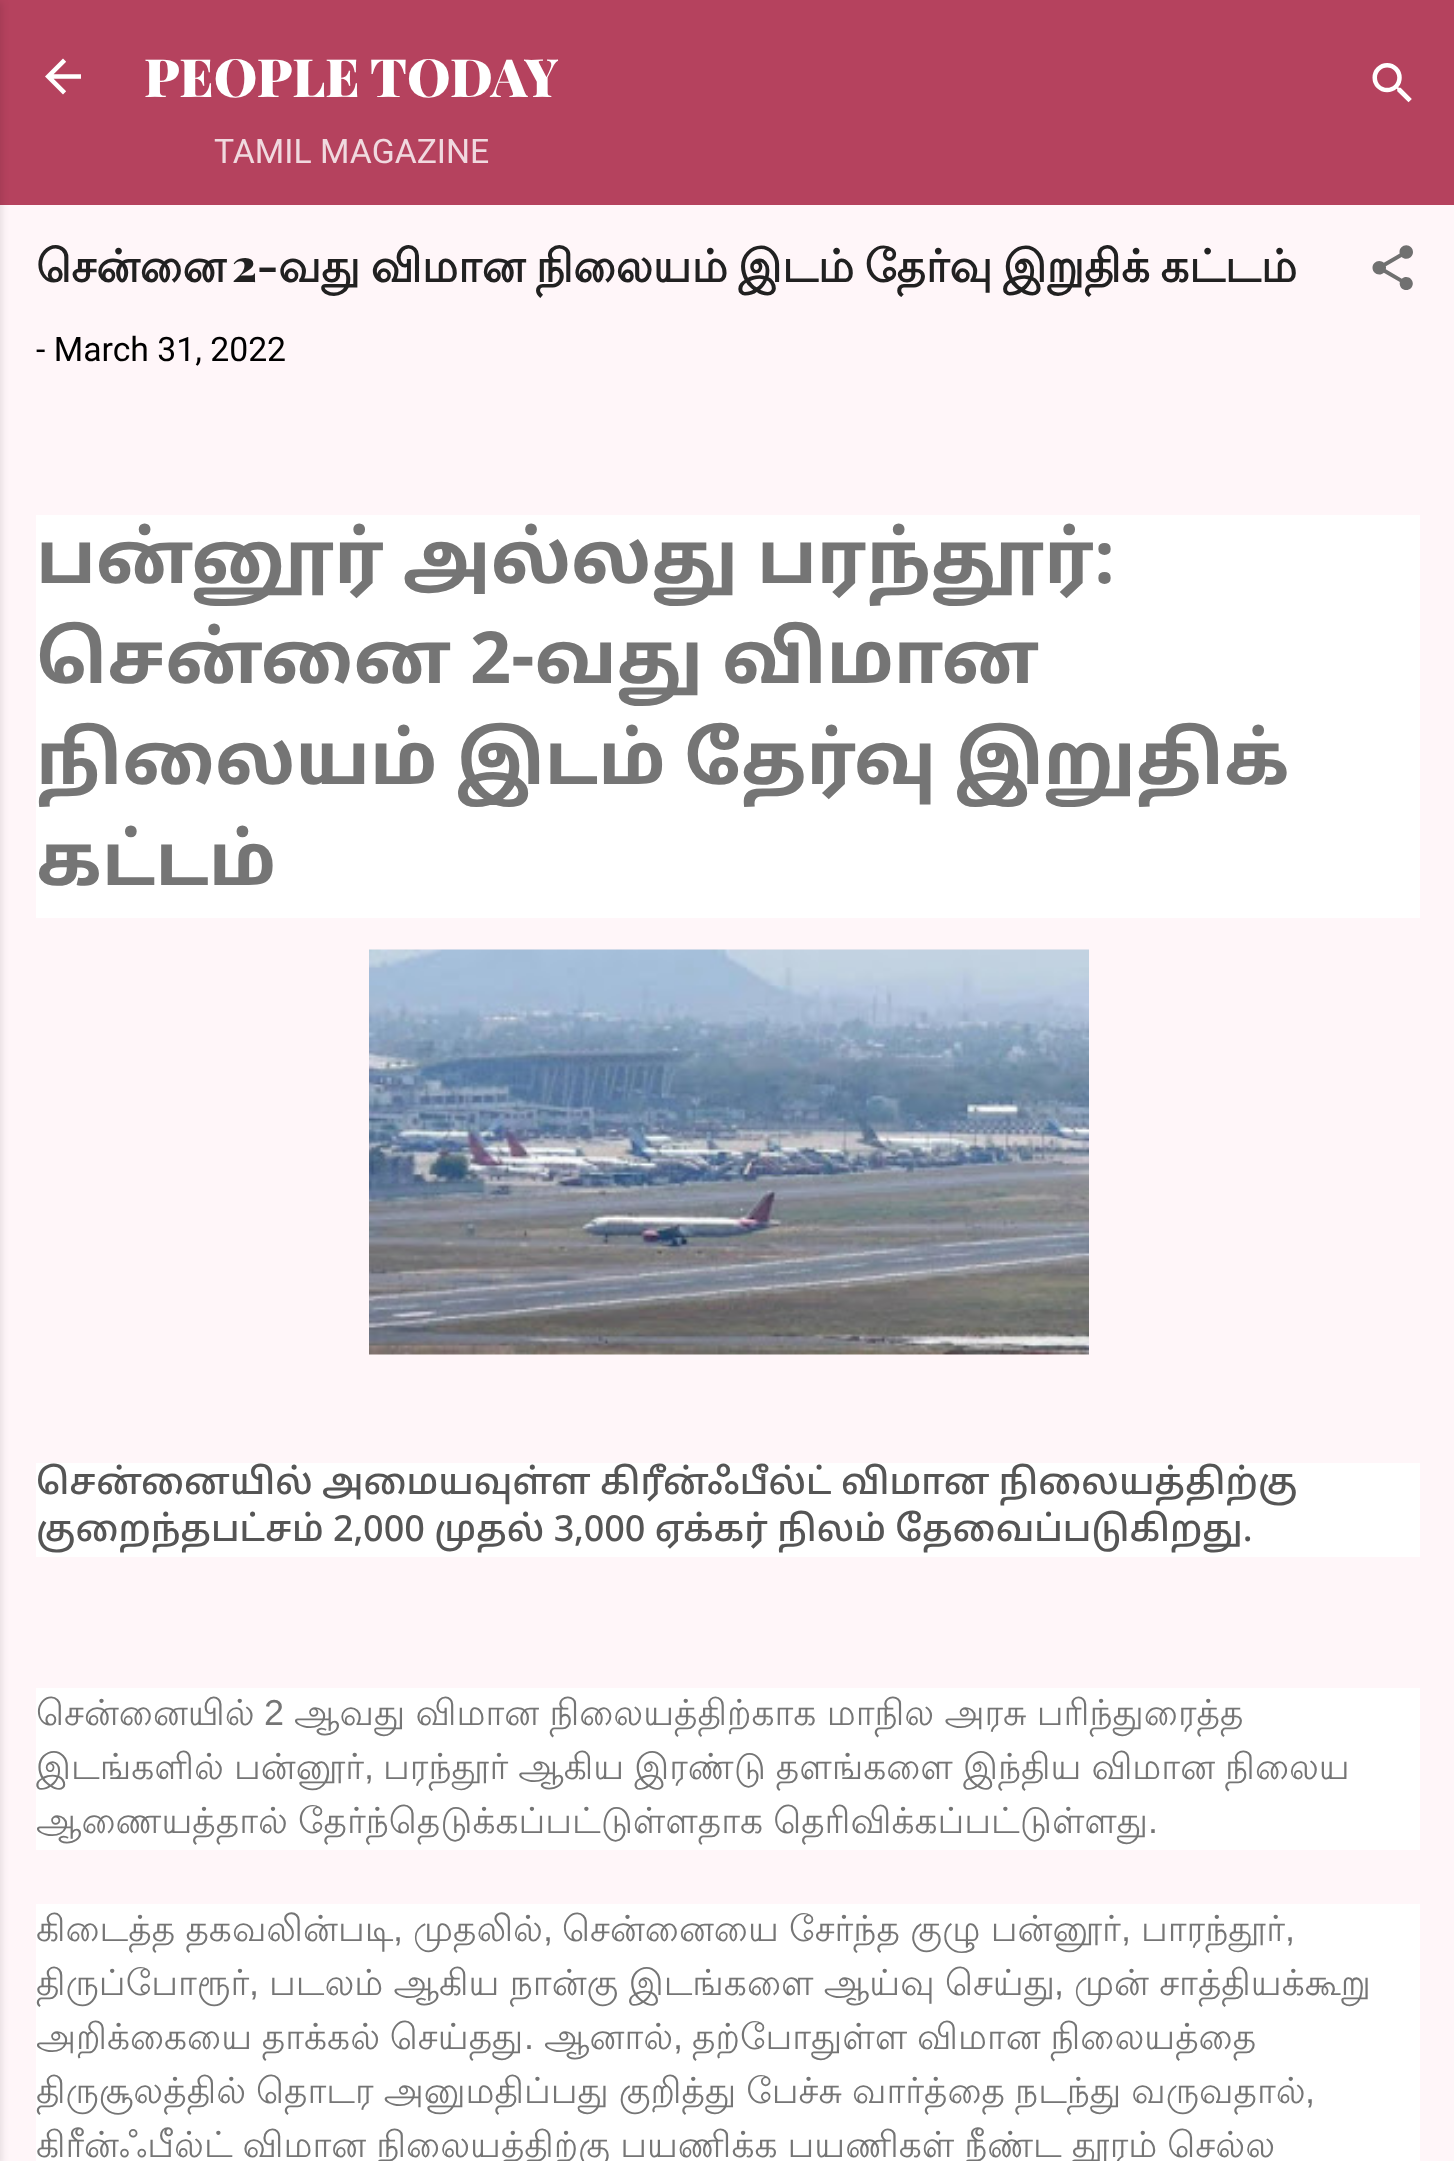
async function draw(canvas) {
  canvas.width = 1454;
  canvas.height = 2161;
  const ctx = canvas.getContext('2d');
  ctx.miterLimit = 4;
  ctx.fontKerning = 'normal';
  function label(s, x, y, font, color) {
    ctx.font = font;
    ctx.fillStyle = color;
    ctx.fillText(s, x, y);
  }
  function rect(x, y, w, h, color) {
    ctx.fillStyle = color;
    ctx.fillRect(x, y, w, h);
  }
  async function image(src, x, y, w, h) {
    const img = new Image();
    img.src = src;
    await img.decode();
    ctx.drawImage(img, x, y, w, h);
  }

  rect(0, 0, 1454, 2161, '#b5425e');
  rect(0, 205, 1454, 1956, '#fff6f9');
  ctx.fillStyle = '#0000001a';
  ctx.filter = 'blur(3.5px)';
  ctx.beginPath();
  ctx.rect(-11, 2, 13, 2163);
  ctx.fill();
  ctx.filter = 'none';
  await image('assets/img1.png', 45, 58, 36, 37);
  label('PEOPLE TODAY', 144, 97, '900 52.75px Playfair Display', '#fff');
  label('TAMIL MAGAZINE', 214, 163, '33.75px Roboto', '#f0d9df');
  await image('assets/img2.png', 1372, 63, 40, 40);
  label('சென்னை', 36, 282, 'bold 45px Lohit Tamil', '#212121');
  label('2-', 232, 282, '900 45px Playfair Display', '#212121');
  ctx.wordSpacing = '-3px';
  label('வது விமான நிலையம் இடம் தேர்வு இறுதிக் கட்டம்', 278, 282, 'bold 45px Lohit Tamil', '#212121');
  await image('assets/img3.png', 1372, 245, 41, 45);
  ctx.wordSpacing = '0px';
  label('- March 31, 2022', 36, 361, '33.75px Roboto', '#000');
  rect(36, 515, 1384, 403, '#fff');
  label('பன்னூர் அல்லது பரந்தூர்:', 36, 583, 'bold 72px Noto Sans Tamil', '#757575');
  label('சென்னை 2-வது விமான', 36, 683, 'bold 72px Noto Sans Tamil', '#757575');
  label('நிலையம் இடம் தேர்வு இறுதிக்', 36, 784, 'bold 72px Noto Sans Tamil', '#757575');
  label('கட்டம்', 36, 885, 'bold 72px Noto Sans Tamil', '#757575');
  await image('assets/img4.png', 369, 949, 720, 406);
  rect(36, 1463, 1384, 94, '#fff');
  label('சென்னையில் அமையவுள்ள கிரீன்ஃபீல்ட் விமான நிலையத்திற்கு', 36, 1494, '500 36px Noto Sans Tamil', '#555');
  label('குறைந்தபட்சம் 2,000 முதல் 3,000 ஏக்கர் நிலம் தேவைப்படுகிறது.', 36, 1541, '500 36px Noto Sans Tamil', '#555');
  rect(36, 1688, 1384, 162, '#fff');
  label('சென்னையில்', 36, 1725, '36px Lohit Tamil', '#757575');
  label('2', 264, 1725, '36px Liberation Sans', '#757575');
  ctx.wordSpacing = '-0.5px';
  label('ஆவது விமான நிலையத்திற்காக மாநில அரசு பரிந்துரைத்த', 294, 1725, '36px Lohit Tamil', '#757575');
  ctx.wordSpacing = '-0.75px';
  label('இடங்களில் பன்னூர்', 36, 1779, '36px Lohit Tamil', '#757575');
  ctx.wordSpacing = '0px';
  label(',', 364, 1779, '36px Liberation Sans', '#757575');
  ctx.wordSpacing = '-0.75px';
  label('பரந்தூர் ஆகிய இரண்டு தளங்களை இந்திய விமான நிலைய', 383, 1779, '36px Lohit Tamil', '#757575');
  label('ஆணையத்தால் தேர்ந்தெடுக்கப்பட்டுள்ளதாக தெரிவிக்கப்பட்டுள்ளது', 36, 1833, '36px Lohit Tamil', '#757575');
  ctx.wordSpacing = '0px';
  label('.', 1148, 1833, '36px Liberation Sans', '#757575');
  rect(36, 1904, 1384, 257, '#fff');
  ctx.wordSpacing = '-0.5px';
  label('கிடைத்த தகவலின்படி', 36, 1941, '36px Lohit Tamil', '#757575');
  ctx.wordSpacing = '0px';
  label(',', 393, 1941, '36px Liberation Sans', '#757575');
  label('முதலில்', 413, 1941, '36px Lohit Tamil', '#757575');
  label(',', 543, 1941, '36px Liberation Sans', '#757575');
  ctx.wordSpacing = '-0.5px';
  label('சென்னையை சேர்ந்த குழு பன்னூர்', 562, 1941, '36px Lohit Tamil', '#757575');
  ctx.wordSpacing = '0px';
  label(',', 1121, 1941, '36px Liberation Sans', '#757575');
  label('பாரந்தூர்', 1141, 1941, '36px Lohit Tamil', '#757575');
  label(',', 1285, 1941, '36px Liberation Sans', '#757575');
  label('திருப்போரூர்', 36, 1995, '36px Lohit Tamil', '#757575');
  label(',', 249, 1995, '36px Liberation Sans', '#757575');
  ctx.wordSpacing = '-0.5px';
  label('படலம் ஆகிய நான்கு இடங்களை ஆய்வு செய்து', 269, 1995, '36px Lohit Tamil', '#757575');
  ctx.wordSpacing = '0px';
  label(',', 1054, 1995, '36px Liberation Sans', '#757575');
  ctx.wordSpacing = '-0.5px';
  label('முன் சாத்தியக்கூறு', 1074, 1995, '36px Lohit Tamil', '#757575');
  ctx.wordSpacing = '-1px';
  label('அறிக்கையை தாக்கல் செய்தது', 36, 2049, '36px Lohit Tamil', '#757575');
  ctx.wordSpacing = '0px';
  label('.', 524, 2049, '36px Liberation Sans', '#757575');
  label('ஆனால்', 544, 2049, '36px Lohit Tamil', '#757575');
  label(',', 673, 2049, '36px Liberation Sans', '#757575');
  ctx.wordSpacing = '-1px';
  label('தற்போதுள்ள விமான நிலையத்தை', 692, 2049, '36px Lohit Tamil', '#757575');
  ctx.wordSpacing = '-0.75px';
  label('திருசூலத்தில் தொடர அனுமதிப்பது குறித்து பேச்சு வார்த்தை நடந்து வருவதால்', 36, 2103, '36px Lohit Tamil', '#757575');
  ctx.wordSpacing = '0px';
  label(',', 1305, 2103, '36px Liberation Sans', '#757575');
  ctx.wordSpacing = '-0.75px';
  label('கிரீன்ஃபீல்ட் விமான நிலையத்திற்கு பயணிக்க பயணிகள் நீண்ட தூரம் செல்ல', 36, 2157, '36px Lohit Tamil', '#757575');
}

draw(document.querySelector('canvas'));
